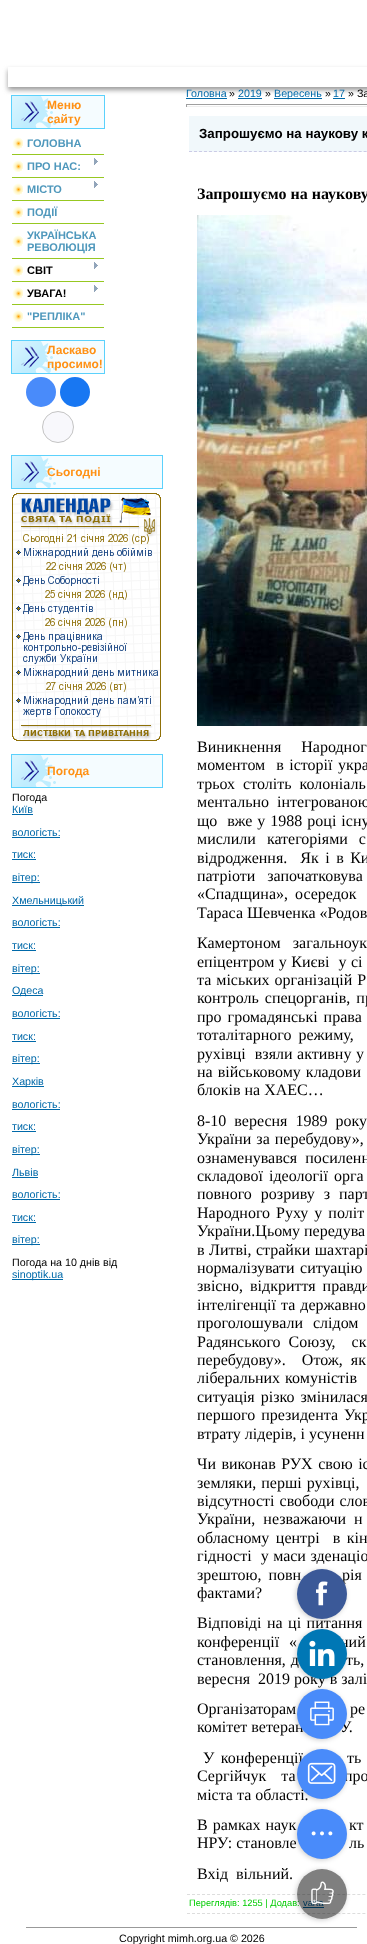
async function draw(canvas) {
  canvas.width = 367;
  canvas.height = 1944;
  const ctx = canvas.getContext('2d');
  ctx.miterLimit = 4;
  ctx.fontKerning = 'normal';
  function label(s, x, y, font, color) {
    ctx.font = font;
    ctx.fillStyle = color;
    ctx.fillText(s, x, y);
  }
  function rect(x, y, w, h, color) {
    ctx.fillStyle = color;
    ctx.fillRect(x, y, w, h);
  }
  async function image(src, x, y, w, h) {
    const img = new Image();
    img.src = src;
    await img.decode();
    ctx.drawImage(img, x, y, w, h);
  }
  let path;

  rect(0, 0, 367, 1944, '#fff');
  ctx.save();
  path = new Path2D('M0 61H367V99H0ZM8 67H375V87H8Z');
  ctx.clip(path, 'evenodd');
  ctx.fillStyle = '#999';
  ctx.filter = 'blur(2.5px)';
  ctx.beginPath();
  ctx.rect(8, 70, 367, 20);
  ctx.fill();
  ctx.filter = 'none';
  ctx.restore();
  rect(56, 96, 48, 32, '#f5fcff');
  await image('assets/img1.png', 12, 96, 44, 32);
  ctx.strokeStyle = '#5bd1fc';
  ctx.strokeRect(11.5, 95.5, 93, 33);
  label('Меню', 47, 109, 'bold 12px Liberation Sans', '#ff9115');
  label('сайту', 47, 123, 'bold 12px Liberation Sans', '#ff9115');
  await image('assets/img2.png', 12, 137, 11, 12);
  rect(12, 154, 92, 1, '#97c821');
  label('ГОЛОВНА', 27, 147, 'bold 11px Liberation Sans', '#4f98bc');
  await image('assets/img2.png', 12, 160, 11, 12);
  rect(12, 177, 92, 1, '#97c821');
  label('ПРО НАС:', 27, 170, 'bold 11px Liberation Sans', '#4f98bc');
  await image('assets/img3.png', 94, 158, 4, 7);
  await image('assets/img2.png', 12, 183, 11, 12);
  rect(12, 200, 92, 1, '#97c821');
  label('МІСТО', 27, 193, 'bold 11px Liberation Sans', '#4f98bc');
  await image('assets/img3.png', 94, 181, 4, 7);
  await image('assets/img2.png', 12, 206, 11, 12);
  rect(12, 223, 92, 1, '#97c821');
  label('ПОДІЇ', 27, 216, 'bold 11px Liberation Sans', '#4f98bc');
  await image('assets/img2.png', 12, 235, 11, 12);
  rect(12, 258, 92, 1, '#97c821');
  label('УКРАЇНСЬКА', 27, 239, 'bold 11px Liberation Sans', '#4f98bc');
  label('РЕВОЛЮЦІЯ', 27, 251, 'bold 11px Liberation Sans', '#4f98bc');
  await image('assets/img2.png', 12, 264, 11, 12);
  rect(12, 281, 92, 1, '#97c821');
  label('СВІТ', 27, 274, 'bold 11px Liberation Sans', '#000');
  await image('assets/img3.png', 94, 262, 4, 7);
  await image('assets/img2.png', 12, 287, 11, 12);
  rect(12, 304, 92, 1, '#97c821');
  label('УВАГА!', 27, 297, 'bold 11px Liberation Sans', '#000');
  await image('assets/img3.png', 94, 285, 4, 7);
  await image('assets/img2.png', 12, 310, 11, 12);
  rect(12, 327, 92, 1, '#97c821');
  label('"РЕПЛІКА"', 27, 320, 'bold 11px Liberation Sans', '#4f98bc');
  rect(56, 341, 48, 32, '#f5fcff');
  await image('assets/img1.png', 12, 341, 44, 32);
  ctx.strokeRect(11.5, 340.5, 93, 33);
  label('Ласкаво', 47, 354, 'bold 12px Liberation Sans', '#ff9115');
  label('просимо!', 47, 368, 'bold 12px Liberation Sans', '#ff9115');
  ctx.fillStyle = '#498bfa';
  ctx.beginPath();
  ctx.arc(41, 392, 15, 0, 2 * Math.PI);
  ctx.fill();
  ctx.fillStyle = '#1877f2';
  ctx.beginPath();
  ctx.arc(75, 392, 15, 0, 2 * Math.PI);
  ctx.fill();
  ctx.fillStyle = '#f8f8fc';
  ctx.beginPath();
  ctx.arc(58, 427, 15.5, 0, 2 * Math.PI);
  ctx.fill();
  ctx.strokeStyle = '#c4c4c4';
  ctx.stroke();
  rect(56, 456, 106, 32, '#f5fcff');
  await image('assets/img1.png', 12, 456, 44, 32);
  ctx.strokeStyle = '#5bd1fc';
  ctx.strokeRect(11.5, 455.5, 151, 33);
  label('Сьогодні', 47, 476, 'bold 12px Liberation Sans', '#ff9115');
  await image('assets/img4.png', 12, 493, 149, 248);
  rect(56, 755, 106, 32, '#f5fcff');
  await image('assets/img1.png', 12, 755, 44, 32);
  ctx.strokeRect(11.5, 754.5, 151, 33);
  label('Погода', 47, 775, 'bold 12px Liberation Sans', '#ff9115');
  label('Погода', 12, 801, '10.7px Liberation Sans', '#000');
  label('Київ', 12, 813, '10.7px Liberation Sans', '#0069a9');
  rect(12, 814, 21, 1, '#0069a9');
  label('вологість:', 12, 836, '10.7px Liberation Sans', '#0069a9');
  rect(12, 837, 48, 1, '#0069a9');
  label('тиск:', 12, 858, '10.7px Liberation Sans', '#0069a9');
  rect(12, 859, 24, 1, '#0069a9');
  rect(12, 882, 28, 1, '#0069a9');
  label('вітер:', 12, 881, '10.7px Liberation Sans', '#0069a9');
  rect(12, 905, 72, 1, '#0069a9');
  label('Хмельницький', 12, 904, '10.7px Liberation Sans', '#0069a9');
  label('вологість:', 12, 926, '10.7px Liberation Sans', '#0069a9');
  rect(12, 927, 48, 1, '#0069a9');
  label('тиск:', 12, 949, '10.7px Liberation Sans', '#0069a9');
  rect(12, 950, 24, 1, '#0069a9');
  rect(12, 973, 28, 1, '#0069a9');
  label('вітер:', 12, 972, '10.7px Liberation Sans', '#0069a9');
  rect(12, 995, 31, 1, '#0069a9');
  label('Одеса', 12, 994, '10.7px Liberation Sans', '#0069a9');
  label('вологість:', 12, 1017, '10.7px Liberation Sans', '#0069a9');
  rect(12, 1018, 48, 1, '#0069a9');
  label('тиск:', 12, 1040, '10.7px Liberation Sans', '#0069a9');
  rect(12, 1041, 24, 1, '#0069a9');
  rect(12, 1063, 28, 1, '#0069a9');
  label('вітер:', 12, 1062, '10.7px Liberation Sans', '#0069a9');
  rect(12, 1086, 32, 1, '#0069a9');
  label('Харків', 12, 1085, '10.7px Liberation Sans', '#0069a9');
  label('вологість:', 12, 1108, '10.7px Liberation Sans', '#0069a9');
  rect(12, 1109, 48, 1, '#0069a9');
  label('тиск:', 12, 1130, '10.7px Liberation Sans', '#0069a9');
  rect(12, 1131, 24, 1, '#0069a9');
  rect(12, 1154, 28, 1, '#0069a9');
  label('вітер:', 12, 1153, '10.7px Liberation Sans', '#0069a9');
  label('Львів', 12, 1176, '10.7px Liberation Sans', '#0069a9');
  rect(12, 1177, 26, 1, '#0069a9');
  label('вологість:', 12, 1198, '10.7px Liberation Sans', '#0069a9');
  rect(12, 1199, 48, 1, '#0069a9');
  label('тиск:', 12, 1221, '10.7px Liberation Sans', '#0069a9');
  rect(12, 1222, 24, 1, '#0069a9');
  rect(12, 1244, 28, 1, '#0069a9');
  label('вітер:', 12, 1243, '10.7px Liberation Sans', '#0069a9');
  label('Погода на 10 днів від', 12, 1266, '10.7px Liberation Sans', '#000');
  rect(12, 1279, 51, 1, '#0069a9');
  label('sinoptik.ua', 12, 1278, '10.7px Liberation Sans', '#0069a9');
  label('Головна', 186, 97, '10.7px Liberation Sans', '#0069a9');
  rect(186, 98, 41, 1, '#0069a9');
  label('»', 229, 97, '10.7px Liberation Sans', '#000');
  label('2019', 238, 97, '10.7px Liberation Sans', '#0069a9');
  rect(238, 98, 24, 1, '#0069a9');
  label('»', 265, 97, '10.7px Liberation Sans', '#000');
  rect(274, 98, 48, 1, '#0069a9');
  label('Вересень', 274, 97, '10.7px Liberation Sans', '#0069a9');
  label('»', 325, 97, '10.7px Liberation Sans', '#000');
  label('17', 333, 97, '10.7px Liberation Sans', '#0069a9');
  rect(333, 98, 12, 1, '#0069a9');
  label('» За', 348, 97, '10.7px Liberation Sans', '#000');
  rect(186, 104, 181, 1, '#9f9f9f');
  rect(186, 106, 181, 1, '#eee');
  rect(186, 104, 1, 3, '#9f9f9f');
  rect(189, 116, 178, 36, '#f1f8fb');
  path = new Path2D('M189 151.5H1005');
  ctx.strokeStyle = '#cbcbe6';
  ctx.setLineDash([3, 1.99]);
  ctx.stroke(path);
  label('Запрошуємо на наукову к', 199, 138, 'bold 13.3px Liberation Sans', '#000');
  label('Запрошуємо на наукову', 197, 199, 'bold 16px Liberation Serif', '#000');
  await image('assets/img5.png', 197, 215, 170, 511);
  ctx.wordSpacing = '6px';
  label('Виникнення  Народног', 197, 752, '16px Liberation Serif', '#000');
  ctx.wordSpacing = '1.5px';
  label('моментом  в історії укра', 197, 770, '16px Liberation Serif', '#000');
  ctx.wordSpacing = '4px';
  label('трьох століть колоніаль', 197, 789, '16px Liberation Serif', '#000');
  ctx.wordSpacing = '0px';
  label('ментально  інтегрованою', 197, 807, '16px Liberation Serif', '#000');
  ctx.wordSpacing = '1px';
  label('що  вже у 1988 році існу', 197, 826, '16px Liberation Serif', '#000');
  ctx.wordSpacing = '7px';
  label('мислили категоріями с', 197, 844, '16px Liberation Serif', '#000');
  ctx.wordSpacing = '2.5px';
  label('відродження.  Як і в Ки', 197, 863, '16px Liberation Serif', '#000');
  ctx.wordSpacing = '8px';
  label('патріоти започатковува', 197, 881, '16px Liberation Serif', '#000');
  ctx.wordSpacing = '3px';
  label('«Спадщина», осередок', 197, 899, '16px Liberation Serif', '#000');
  ctx.wordSpacing = '0px';
  label('Тараса Шевченка «Родов', 197, 918, '16px Liberation Serif', '#000');
  ctx.wordSpacing = '2px';
  label('Камертоном  загальноук', 197, 948, '16px Liberation Serif', '#000');
  ctx.wordSpacing = '0.5px';
  label('епіцентром у Києві  у сі', 197, 967, '16px Liberation Serif', '#000');
  ctx.wordSpacing = '1px';
  label('та міських організацій Р', 197, 985, '16px Liberation Serif', '#000');
  ctx.wordSpacing = '2px';
  label('контроль спецорганів, пр', 197, 1003, '16px Liberation Serif', '#000');
  label('про громадянські права', 197, 1022, '16px Liberation Serif', '#000');
  ctx.wordSpacing = '3px';
  label('тоталітарного режиму,', 197, 1040, '16px Liberation Serif', '#000');
  ctx.wordSpacing = '0.5px';
  label('рухівці  взяли активну у', 197, 1059, '16px Liberation Serif', '#000');
  ctx.wordSpacing = '1px';
  label('на військовому кладови', 197, 1077, '16px Liberation Serif', '#000');
  ctx.wordSpacing = '0px';
  label('блоків на ХАЕС…', 197, 1095, '16px Liberation Serif', '#000');
  ctx.wordSpacing = '4px';
  label('8-10 вересня 1989 року', 197, 1126, '16px Liberation Serif', '#000');
  ctx.wordSpacing = '1px';
  label('України за перебудову»,', 197, 1144, '16px Liberation Serif', '#000');
  ctx.wordSpacing = '4px';
  label('ознаменувався посиленн', 197, 1163, '16px Liberation Serif', '#000');
  ctx.wordSpacing = '2px';
  label('складової ідеології орга', 197, 1181, '16px Liberation Serif', '#000');
  ctx.wordSpacing = '5px';
  label('повного розриву з парт', 197, 1199, '16px Liberation Serif', '#000');
  ctx.wordSpacing = '2px';
  label('Народного Руху у політ', 197, 1218, '16px Liberation Serif', '#000');
  ctx.wordSpacing = '0px';
  label('України.Цьому передува', 197, 1236, '16px Liberation Serif', '#000');
  ctx.wordSpacing = '0.5px';
  label('в Литві, страйки шахтарі', 197, 1255, '16px Liberation Serif', '#000');
  ctx.wordSpacing = '1.5px';
  label('нормалізувати ситуацію', 197, 1273, '16px Liberation Serif', '#000');
  ctx.wordSpacing = '3px';
  label('звісно, відкриття правди', 197, 1291, '16px Liberation Serif', '#000');
  ctx.wordSpacing = '1px';
  label('інтелігенції та державно', 197, 1310, '16px Liberation Serif', '#000');
  label('проголошували  слідом', 197, 1328, '16px Liberation Serif', '#000');
  ctx.wordSpacing = '4px';
  label('Радянського Союзу,  ск', 197, 1347, '16px Liberation Serif', '#000');
  label('перебудову».  Отож, як', 197, 1365, '16px Liberation Serif', '#000');
  ctx.wordSpacing = '1px';
  label('ліберальних комуністів', 197, 1383, '16px Liberation Serif', '#000');
  ctx.wordSpacing = '2px';
  label('ситуація різко змінилася', 197, 1402, '16px Liberation Serif', '#000');
  label('першого президента Укр', 197, 1420, '16px Liberation Serif', '#000');
  ctx.wordSpacing = '0px';
  label('втрату лідерів, і усуненн', 197, 1439, '16px Liberation Serif', '#000');
  ctx.wordSpacing = '1.5px';
  label('Чи виконав РУХ свою іс', 197, 1469, '16px Liberation Serif', '#000');
  ctx.wordSpacing = '1px';
  label('земляки, перші рухівці,', 197, 1488, '16px Liberation Serif', '#000');
  label('відсутності свободи слов', 197, 1506, '16px Liberation Serif', '#000');
  ctx.wordSpacing = '4px';
  label('України, незважаючи н', 197, 1524, '16px Liberation Serif', '#000');
  ctx.wordSpacing = '2.5px';
  label('обласному центрі  в кін', 197, 1543, '16px Liberation Serif', '#000');
  ctx.wordSpacing = '0.5px';
  label('гідності  у маси зденаціо', 197, 1561, '16px Liberation Serif', '#000');
  ctx.wordSpacing = '3px';
  label('зрештою, повн', 197, 1580, '16px Liberation Serif', '#000');
  label('рія', 342, 1580, '16px Liberation Serif', '#000');
  ctx.wordSpacing = '0px';
  label('фактами?', 197, 1598, '16px Liberation Serif', '#000');
  ctx.wordSpacing = '1.5px';
  label('Відповіді на ці питання', 197, 1628, '16px Liberation Serif', '#000');
  ctx.wordSpacing = '1px';
  label('конференції  «', 197, 1647, '16px Liberation Serif', '#000');
  label('ний', 340, 1647, '16px Liberation Serif', '#000');
  label('становлення, д', 197, 1665, '16px Liberation Serif', '#000');
  label('ть,', 346, 1665, '16px Liberation Serif', '#000');
  ctx.wordSpacing = '0px';
  label('вересня  2019 року в залі', 197, 1684, '16px Liberation Serif', '#000');
  label('Організаторам', 197, 1714, '16px Liberation Serif', '#000');
  label('ре', 350, 1714, '16px Liberation Serif', '#000');
  label('комітет ветеран', 197, 1732, '16px Liberation Serif', '#000');
  label('У.', 340, 1732, '16px Liberation Serif', '#000');
  ctx.wordSpacing = '2.5px';
  label('У конференції', 203, 1763, '16px Liberation Serif', '#000');
  label('ть', 347, 1763, '16px Liberation Serif', '#000');
  ctx.wordSpacing = '1px';
  label('Сергійчук   та', 197, 1781, '16px Liberation Serif', '#000');
  label('про', 344, 1781, '16px Liberation Serif', '#000');
  ctx.wordSpacing = '0px';
  label('міста та області.', 197, 1800, '16px Liberation Serif', '#000');
  ctx.wordSpacing = '1px';
  label('В рамках наук', 197, 1830, '16px Liberation Serif', '#000');
  label('кт', 349, 1830, '16px Liberation Serif', '#000');
  ctx.wordSpacing = '0px';
  label('НРУ: становле', 197, 1848, '16px Liberation Serif', '#000');
  label('ль', 349, 1848, '16px Liberation Serif', '#000');
  label('Вхід  вільний.', 197, 1879, '16px Liberation Serif', '#000');
  path = new Path2D('M187 1894.5H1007');
  ctx.strokeStyle = '#ddd';
  ctx.setLineDash([3, 2.01]);
  ctx.stroke(path);
  path = new Path2D('M187 1913.5H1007');
  ctx.stroke(path);
  label('Переглядів: 1255 | Додав:', 189, 1906, '9.25px Liberation Sans', '#0c0');
  label('varta', 303, 1906, '9.25px Liberation Sans', '#0069a9');
  rect(303, 1907, 21, 1, '#0069a9');
  rect(26, 1927, 331, 1, '#999');
  label('Copyright mimh.org.ua © 2026', 119, 1942, '10.7px Liberation Sans', '#000');
  ctx.fillStyle = '#00000033';
  ctx.filter = 'blur(2.5px)';
  ctx.beginPath();
  ctx.roundRect(296, 1570, 50, 50, 25);
  ctx.fill();
  ctx.filter = 'none';
  ctx.fillStyle = '#3b5998';
  ctx.beginPath();
  ctx.arc(322, 1594, 25, 0, 2 * Math.PI);
  ctx.fill();
  await image('assets/img6.png', 316, 1581, 12, 25);
  ctx.fillStyle = '#00000033';
  ctx.filter = 'blur(2.5px)';
  ctx.beginPath();
  ctx.roundRect(296, 1630, 50, 50, 25);
  ctx.fill();
  ctx.filter = 'none';
  ctx.fillStyle = '#0077b5';
  ctx.beginPath();
  ctx.arc(322, 1654, 25, 0, 2 * Math.PI);
  ctx.fill();
  await image('assets/img7.png', 309, 1640, 26, 26);
  ctx.fillStyle = '#00000033';
  ctx.filter = 'blur(2.5px)';
  ctx.beginPath();
  ctx.roundRect(296, 1690, 50, 50, 25);
  ctx.fill();
  ctx.filter = 'none';
  ctx.fillStyle = '#498bfa';
  ctx.beginPath();
  ctx.arc(322, 1714, 25, 0, 2 * Math.PI);
  ctx.fill();
  await image('assets/img8.png', 310, 1701, 24, 25);
  ctx.fillStyle = '#00000033';
  ctx.filter = 'blur(2.5px)';
  ctx.beginPath();
  ctx.roundRect(296, 1750, 50, 50, 25);
  ctx.fill();
  ctx.filter = 'none';
  ctx.fillStyle = '#498bfa';
  ctx.beginPath();
  ctx.arc(322, 1774, 25, 0, 2 * Math.PI);
  ctx.fill();
  await image('assets/img9.png', 307, 1762, 29, 22);
  ctx.fillStyle = '#00000033';
  ctx.filter = 'blur(2.5px)';
  ctx.beginPath();
  ctx.roundRect(296, 1810, 50, 50, 25);
  ctx.fill();
  ctx.filter = 'none';
  ctx.fillStyle = '#498bfa';
  ctx.beginPath();
  ctx.arc(322, 1834, 25, 0, 2 * Math.PI);
  ctx.fill();
  await image('assets/img10.png', 311, 1831, 22, 5);
  ctx.save();
  path = new Path2D('M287 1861H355V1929H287ZM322 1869C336 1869 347 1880 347 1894C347 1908 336 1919 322 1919C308 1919 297 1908 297 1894C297 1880 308 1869 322 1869Z');
  ctx.clip(path, 'evenodd');
  ctx.fillStyle = '#00000033';
  ctx.filter = 'blur(2.5px)';
  ctx.beginPath();
  ctx.roundRect(296, 1870, 50, 50, 25);
  ctx.fill();
  ctx.filter = 'none';
  ctx.restore();
  ctx.fillStyle = '#00000080';
  ctx.beginPath();
  ctx.arc(322, 1894, 25, 0, 2 * Math.PI);
  ctx.fill();
  await image('assets/img11.png', 311, 1881, 23, 23);
}

draw(document.querySelector('canvas'));
